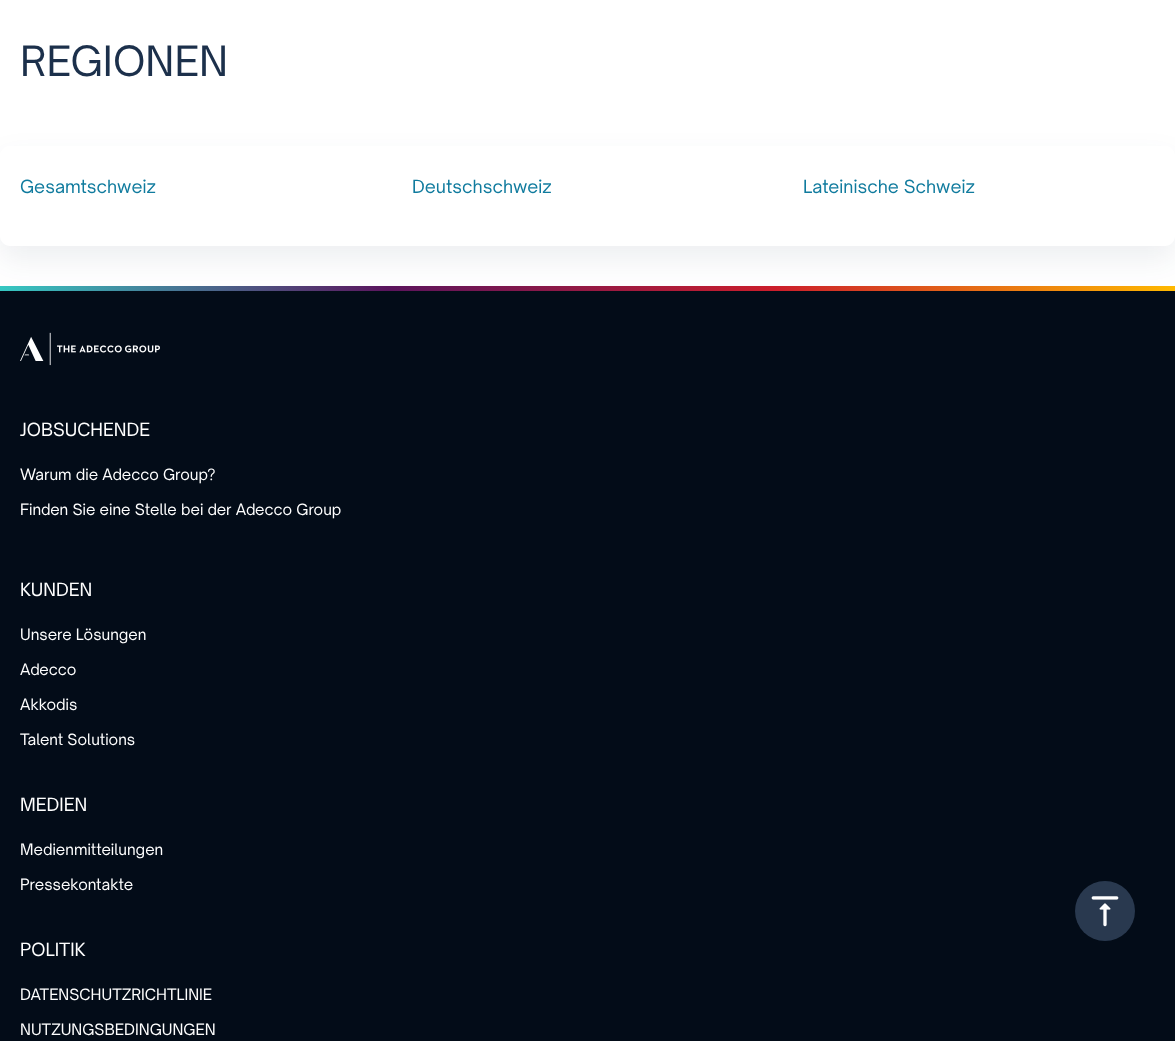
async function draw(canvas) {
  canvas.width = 1175;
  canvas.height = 1041;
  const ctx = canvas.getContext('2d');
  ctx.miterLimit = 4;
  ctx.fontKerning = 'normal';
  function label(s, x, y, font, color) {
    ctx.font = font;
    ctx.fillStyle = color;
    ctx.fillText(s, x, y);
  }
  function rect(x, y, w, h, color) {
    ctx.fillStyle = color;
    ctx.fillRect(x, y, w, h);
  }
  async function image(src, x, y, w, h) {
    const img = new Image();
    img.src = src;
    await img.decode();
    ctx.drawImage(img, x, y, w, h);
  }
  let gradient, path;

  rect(0, 0, 1175, 1041, '#fff');
  label('REGIONEN', 20, 76, '40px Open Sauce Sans', '#1c304b');
  gradient = ctx.createLinearGradient(0, 289, 1175, 289);
  gradient.addColorStop(0, '#36c8c2');
  gradient.addColorStop(0.33, '#5b155d');
  gradient.addColorStop(0.66, '#cc1e2b');
  gradient.addColorStop(1, '#ffb900');
  ctx.fillStyle = gradient;
  ctx.fillRect(0, 286, 1175, 5);
  rect(0, 291, 1175, 750, '#030c18');
  ctx.save();
  path = new Path2D('M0 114H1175V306H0ZM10 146H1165C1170.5 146 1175 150.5 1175 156V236C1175 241.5 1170.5 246 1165 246H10C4.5 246 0 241.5 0 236V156C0 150.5 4.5 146 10 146Z');
  ctx.clip(path, 'evenodd');
  ctx.fillStyle = '#1c304b14';
  ctx.filter = 'blur(15px)';
  ctx.beginPath();
  ctx.roundRect(0, 160, 1175, 100, 10);
  ctx.fill();
  ctx.filter = 'none';
  ctx.restore();
  label('Gesamtschweiz', 20, 193, '17.5px Open Sauce Sans', '#107b9e');
  label('Deutschschweiz', 412, 193, '17.5px Open Sauce Sans', '#107b9e');
  label('Lateinische Schweiz', 803, 193, '17.5px Open Sauce Sans', '#107b9e');
  ctx.fillStyle = '#29394f';
  ctx.beginPath();
  ctx.arc(1105, 911, 30, 0, 2 * Math.PI);
  ctx.fill();
  await image('assets/img1.png', 1091, 896, 28, 31);
  await image('assets/img2.png', 20, 332, 140, 34);
  label('JOBSUCHENDE', 20, 436, '17.5px Open Sauce Sans', '#fff');
  label('Warum die Adecco Group?', 20, 480, '15px Open Sauce Sans', '#fff');
  label('Finden Sie eine Stelle bei der Adecco Group', 20, 515, '15px Open Sauce Sans', '#fff');
  label('KUNDEN', 20, 596, '17.5px Open Sauce Sans', '#fff');
  label('Unsere Lösungen', 20, 640, '15px Open Sauce Sans', '#fff');
  label('Adecco', 20, 675, '15px Open Sauce Sans', '#fff');
  label('Akkodis', 20, 710, '15px Open Sauce Sans', '#fff');
  label('Talent Solutions', 20, 745, '15px Open Sauce Sans', '#fff');
  label('MEDIEN', 20, 811, '17.5px Open Sauce Sans', '#fff');
  label('Medienmitteilungen', 20, 855, '15px Open Sauce Sans', '#fff');
  label('Pressekontakte', 20, 890, '15px Open Sauce Sans', '#fff');
  label('POLITIK', 20, 956, '17.5px Open Sauce Sans', '#fff');
  label('DATENSCHUTZRICHTLINIE', 20, 1000, '15px Open Sauce Sans', '#fff');
  label('NUTZUNGSBEDINGUNGEN', 20, 1035, '15px Open Sauce Sans', '#fff');
}

draw(document.querySelector('canvas'));
